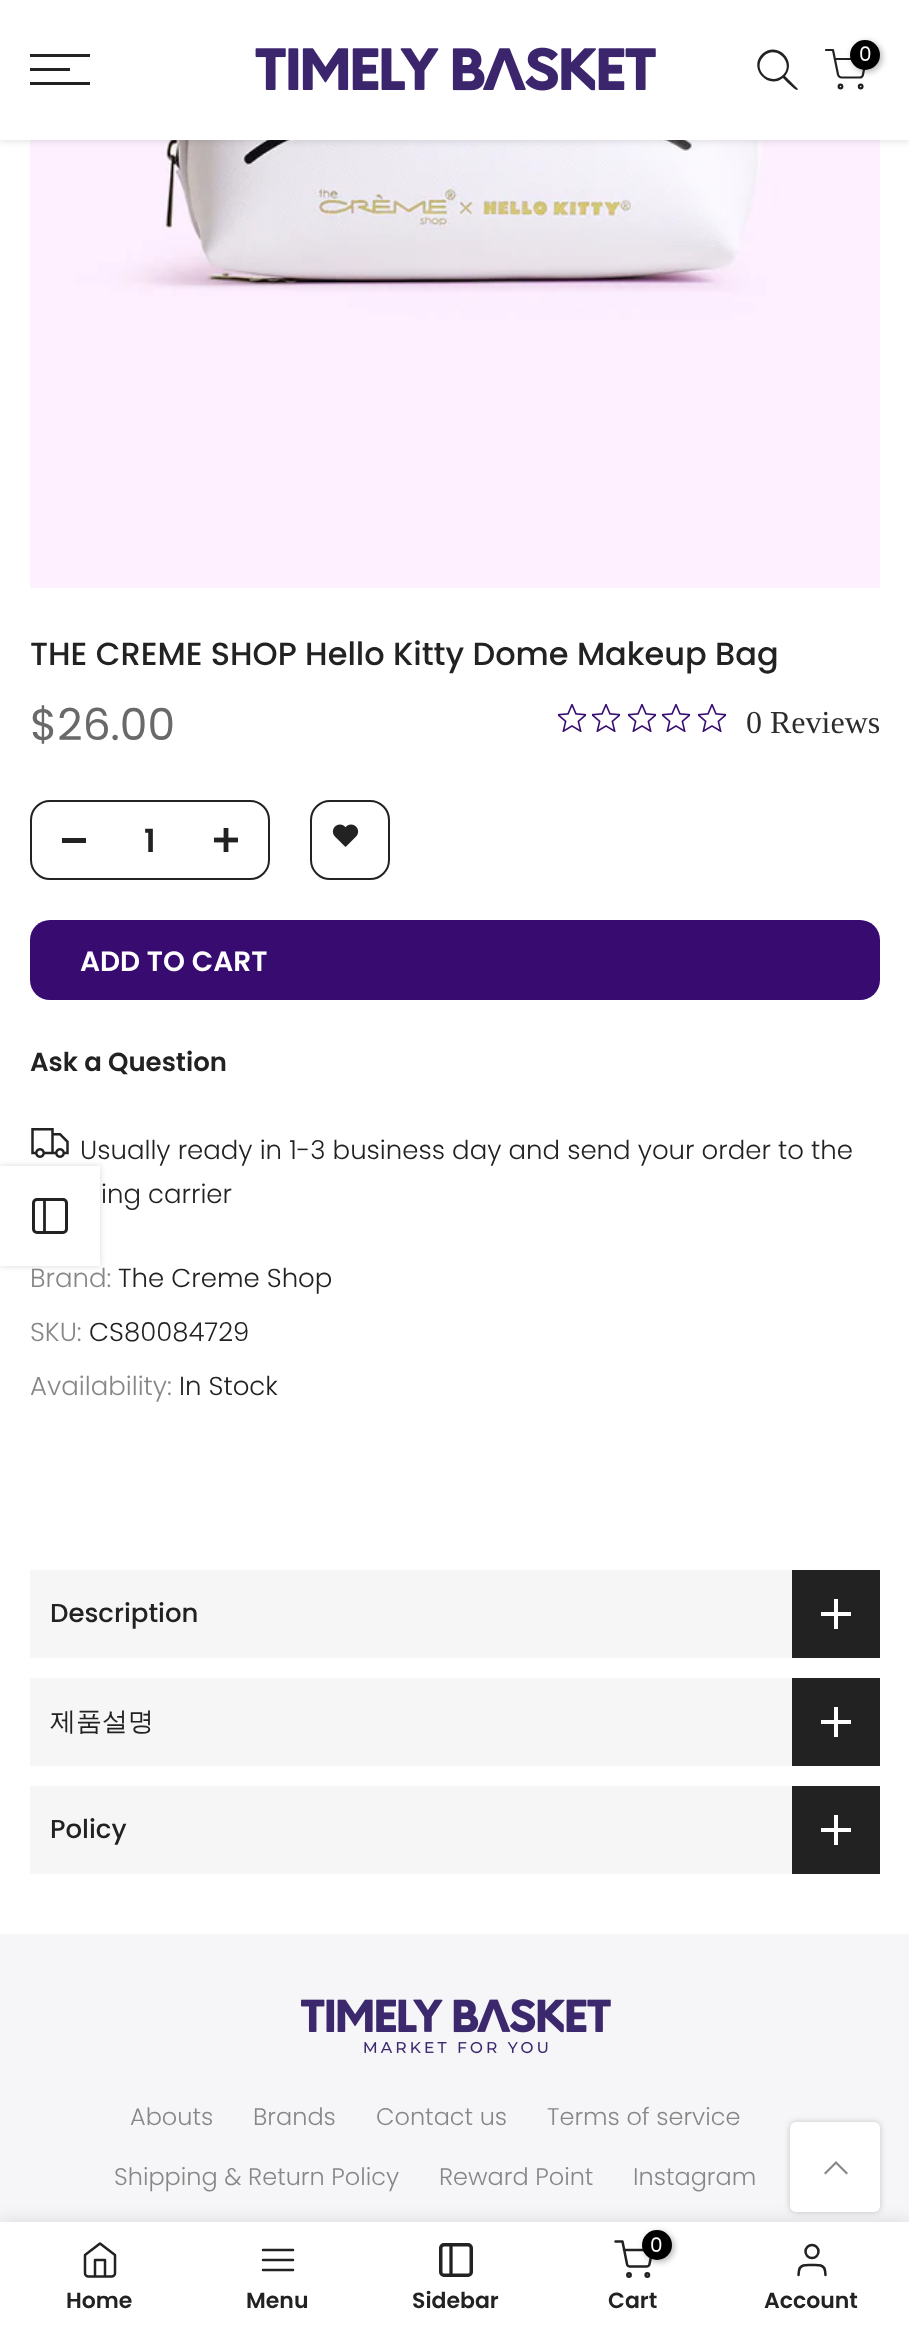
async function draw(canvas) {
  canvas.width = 909;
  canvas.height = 2331;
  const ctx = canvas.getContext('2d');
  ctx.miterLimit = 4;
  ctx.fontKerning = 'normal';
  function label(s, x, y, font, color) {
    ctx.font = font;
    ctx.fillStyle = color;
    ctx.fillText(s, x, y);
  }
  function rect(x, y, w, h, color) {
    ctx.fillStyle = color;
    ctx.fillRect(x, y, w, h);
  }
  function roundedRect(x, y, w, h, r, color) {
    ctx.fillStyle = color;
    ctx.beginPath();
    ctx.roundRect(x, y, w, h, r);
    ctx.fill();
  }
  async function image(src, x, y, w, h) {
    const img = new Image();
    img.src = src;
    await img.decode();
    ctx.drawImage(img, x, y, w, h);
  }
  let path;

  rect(0, 0, 909, 2331, '#fff');
  await image('assets/img2.png', 30, 140, 850, 448);
  ctx.fillStyle = '#0000001a';
  ctx.filter = 'blur(3px)';
  ctx.beginPath();
  ctx.rect(0, 2, 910, 140);
  ctx.fill();
  ctx.filter = 'none';
  rect(0, 0, 909, 140, '#fff');
  rect(30, 54, 60, 3, '#222');
  rect(30, 68, 40, 3, '#222');
  rect(30, 82, 60, 3, '#222');
  await image('assets/img1.png', 255, 47, 401, 44);
  path = new Path2D('M783 75C770 87 751 69 764 56C776 44 795 63 783 75ZM783 78C768 90 748 68 762 54C777 40 798 61 785 76L798 89L797 90C796 91 785 80 783 78Z');
  ctx.fill(path, 'evenodd');
  path = new Path2D('M826 50H833L838 74.5C838.5 76 840 77.5 841.5 77.5H859.5C861.5 77.5 863 76 863 74.5L866 59H835');
  ctx.strokeStyle = '#222';
  ctx.lineWidth = 2.2;
  ctx.lineCap = 'round';
  ctx.lineJoin = 'round';
  ctx.stroke(path);
  ctx.fillStyle = '#0000004d';
  ctx.filter = 'blur(3px)';
  ctx.beginPath();
  ctx.roundRect(852, 42, 30, 30, 15);
  ctx.fill();
  ctx.filter = 'none';
  ctx.fillStyle = '#000';
  ctx.beginPath();
  ctx.arc(865, 55, 15, 0, 2 * Math.PI);
  ctx.fill();
  label('0', 859, 61, '20px Poppins', '#fff');
  ctx.beginPath();
  ctx.arc(840.5, 86.5, 1.8, 0, 2 * Math.PI);
  ctx.stroke();
  ctx.beginPath();
  ctx.arc(860.7, 86.5, 1.8, 0, 2 * Math.PI);
  ctx.stroke();
  label('THE CREME SHOP Hello Kitty Dome Makeup Bag', 30, 665, '500 32px Poppins', '#222');
  label('$26.00', 30, 740, '44px Poppins', '#696969');
  await image('assets/img3.png', 558, 704, 28, 28);
  await image('assets/img3.png', 592, 704, 28, 28);
  await image('assets/img3.png', 628, 704, 28, 28);
  await image('assets/img3.png', 662, 704, 28, 28);
  await image('assets/img3.png', 698, 704, 28, 28);
  label('0 Reviews', 746, 733, '32px Liberation Serif', '#2c2c2c');
  ctx.beginPath();
  ctx.roundRect(31, 801, 238, 78, 19);
  ctx.lineWidth = 2;
  ctx.lineJoin = 'miter';
  ctx.stroke();
  rect(62, 838, 24, 5, '#222');
  label('1', 144, 852, '600 32px Poppins', '#222');
  await image('assets/img4.png', 214, 828, 24, 24);
  ctx.beginPath();
  ctx.roundRect(311, 801, 78, 78, 19);
  ctx.stroke();
  await image('assets/img5.png', 332, 824, 27, 23);
  roundedRect(30, 920, 850, 80, 20, '#380b70');
  label('ADD TO CART', 80, 971, '600 28px Poppins', '#fff');
  label('Ask a Question', 30, 1071, '600 26px Poppins', '#222');
  await image('assets/img6.png', 31, 1128, 38, 30);
  label('Usually ready in 1-3 business day and send your order to the', 80, 1159, '300 26px Poppins', '#222');
  label('ing carrier', 101, 1203, '300 26px Poppins', '#222');
  label('Brand:', 30, 1287, '300 26px Poppins', '#878787');
  label('The Creme Shop', 118, 1287, '300 26px Poppins', '#222');
  label('SKU:', 30, 1341, '300 26px Poppins', '#878787');
  label('CS80084729', 89, 1341, '300 26px Poppins', '#222');
  label('Availability:', 30, 1395, '300 26px Poppins', '#878787');
  label('In Stock', 179, 1395, '300 26px Poppins', '#222');
  rect(30, 1570, 762, 88, '#f6f6f6');
  label('Description', 50, 1622, '500 26px Poppins', '#222');
  rect(792, 1570, 88, 88, '#222');
  rect(834, 1599, 4, 30, '#fff');
  rect(821, 1612, 30, 4, '#fff');
  rect(30, 1678, 762, 88, '#f6f6f6');
  label('제품설명', 50, 1730, '500 26px WenQuanYi Zen Hei', '#222');
  rect(792, 1678, 88, 88, '#222');
  rect(834, 1707, 4, 30, '#fff');
  rect(821, 1720, 30, 4, '#fff');
  rect(30, 1786, 762, 88, '#f6f6f6');
  label('Policy', 50, 1838, '500 26px Poppins', '#222');
  rect(792, 1786, 88, 88, '#222');
  rect(834, 1815, 4, 30, '#fff');
  rect(821, 1828, 30, 4, '#fff');
  ctx.fillStyle = '#00000026';
  ctx.filter = 'blur(3px)';
  ctx.beginPath();
  ctx.rect(0, 1166, 100, 100);
  ctx.fill();
  ctx.filter = 'none';
  rect(0, 1166, 100, 100, '#fff');
  ctx.beginPath();
  ctx.roundRect(33.5, 1199.5, 33, 33, 3.5);
  ctx.lineWidth = 3;
  ctx.stroke();
  path = new Path2D('M44.5 1199.5V1232.5');
  ctx.lineWidth = 2.8;
  ctx.lineJoin = 'round';
  ctx.stroke(path);
  rect(0, 1934, 909, 288, '#f6f6f8');
  await image('assets/img7.png', 301, 1999, 310, 55);
  label('Abouts', 130, 2125, '300 24px Poppins', '#878787');
  label('Brands', 253, 2125, '300 24px Poppins', '#878787');
  label('Contact us', 376, 2125, '300 24px Poppins', '#878787');
  label('Terms of service', 547, 2125, '300 24px Poppins', '#878787');
  label('Shipping & Return Policy', 114, 2185, '300 24px Poppins', '#878787');
  label('Reward Point', 439, 2185, '300 24px Poppins', '#878787');
  label('Instagram', 633, 2185, '300 24px Poppins', '#878787');
  ctx.fillStyle = '#00000033';
  ctx.filter = 'blur(3px)';
  ctx.beginPath();
  ctx.roundRect(790, 2122, 90, 90, 6);
  ctx.fill();
  ctx.filter = 'none';
  ctx.fillStyle = '#0000001f';
  ctx.filter = 'blur(9px)';
  ctx.beginPath();
  ctx.rect(0, 2222, 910, 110);
  ctx.fill();
  ctx.filter = 'none';
  roundedRect(790, 2122, 90, 90, 6, '#fff');
  ctx.fillStyle = '#878787';
  path = new Path2D('M837.5 2162.5L836 2161L824 2173L825.5 2174.5L836 2164L846.5 2174.5L848 2173L842 2167Z');
  ctx.fill(path);
  rect(0, 2222, 909, 109, '#fff');
  path = new Path2D('M85 2255L100 2243.5L115 2255V2273.5C115 2275 113.5 2276.5 111.5 2276.5H88.5C86.5 2276.5 85 2275 85 2273.5ZM95 2276.5V2260H105V2276.5');
  ctx.lineWidth = 2.5;
  ctx.stroke(path);
  label('Home', 66, 2308, '600 22px Poppins', '#222');
  path = new Path2D('M263 2260H293M263 2250H293M263 2270H293');
  ctx.stroke(path);
  label('Menu', 246, 2308, '600 22px Poppins', '#222');
  ctx.beginPath();
  ctx.roundRect(440.75, 2244.75, 30.5, 30.5, 3.25);
  ctx.lineWidth = 3.5;
  ctx.lineJoin = 'miter';
  ctx.stroke();
  path = new Path2D('M451 2245V2275');
  ctx.lineWidth = 3.3;
  ctx.lineJoin = 'round';
  ctx.stroke(path);
  label('Sidebar', 412, 2308, '600 22px Poppins', '#222');
  path = new Path2D('M615.5 2241.5H622.5L627 2264C627 2265.5 628.5 2266.5 630 2266.5H646.5C648 2266.5 649.5 2265.5 649.5 2264L652.5 2250H624');
  ctx.lineWidth = 2.5;
  ctx.stroke(path);
  ctx.fillStyle = '#0000004d';
  ctx.filter = 'blur(3px)';
  ctx.beginPath();
  ctx.roundRect(644, 2232, 30, 30, 15);
  ctx.fill();
  ctx.filter = 'none';
  ctx.fillStyle = '#000';
  ctx.beginPath();
  ctx.arc(657, 2245, 15, 0, 2 * Math.PI);
  ctx.fill();
  label('0', 650, 2252, '20px Poppins', '#fff');
  ctx.beginPath();
  ctx.arc(629, 2275, 1.7, 0, 2 * Math.PI);
  ctx.stroke();
  ctx.beginPath();
  ctx.arc(647.3, 2275, 1.7, 0, 2 * Math.PI);
  ctx.stroke();
  label('Cart', 608, 2308, '600 22px Poppins', '#222');
  ctx.beginPath();
  ctx.arc(812, 2251.5, 6.5, 0, 2 * Math.PI);
  ctx.stroke();
  path = new Path2D('M825.5 2275L825 2270.5C824 2264 817 2265 812 2265C807 2265 800 2264 799 2270.5L798.5 2275');
  ctx.stroke(path);
  label('Account', 764, 2308, '600 22px Poppins', '#222');
}

draw(document.querySelector('canvas'));
